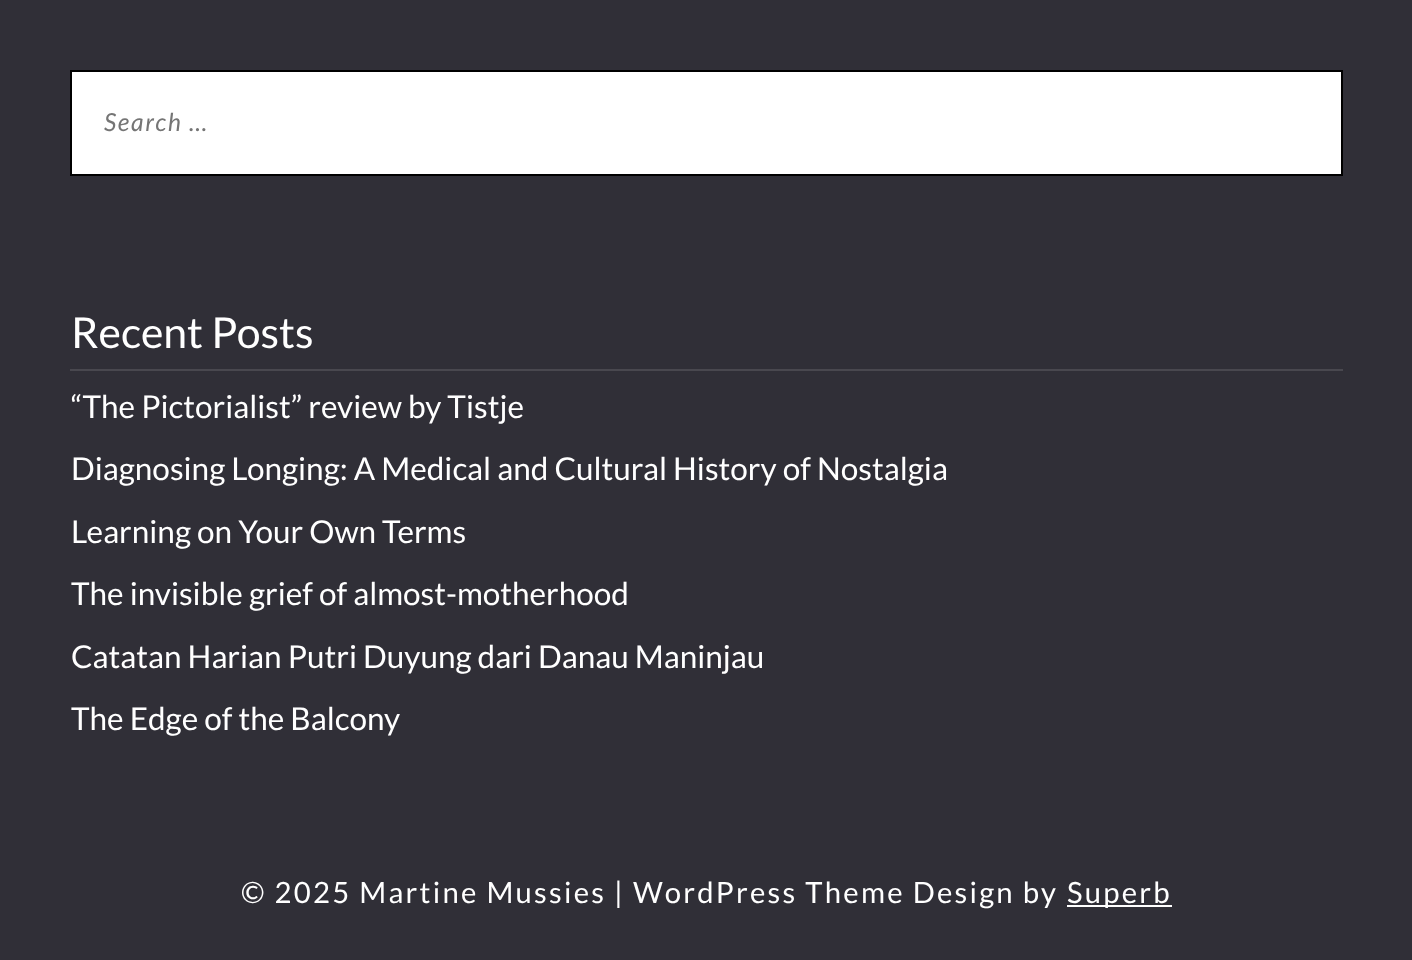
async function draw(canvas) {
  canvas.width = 1412;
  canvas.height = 960;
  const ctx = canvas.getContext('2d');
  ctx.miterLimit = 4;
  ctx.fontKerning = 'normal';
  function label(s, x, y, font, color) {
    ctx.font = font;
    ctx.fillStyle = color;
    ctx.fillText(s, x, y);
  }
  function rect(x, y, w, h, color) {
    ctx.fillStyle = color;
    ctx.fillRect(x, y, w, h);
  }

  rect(0, 0, 1412, 960, '#302f37');
  ctx.fillStyle = '#fff';
  ctx.beginPath();
  ctx.rect(71, 71, 1271, 104);
  ctx.fill();
  ctx.strokeStyle = '#000';
  ctx.lineWidth = 2;
  ctx.stroke();
  ctx.letterSpacing = '1.75px';
  label('Search …', 104, 131, 'italic 24.75px Lato', '#757575');
  rect(70, 369, 1273, 2, '#49484f');
  ctx.letterSpacing = '0px';
  label('Recent Posts', 71, 348, '42.75px Lato', '#fff');
  label('“The Pictorialist” review by Tistje', 71, 418, '31.5px Lato', '#fff');
  label('Diagnosing Longing: A Medical and Cultural History of Nostalgia', 71, 480, '31.5px Lato', '#fff');
  label('Learning on Your Own Terms', 71, 543, '31.5px Lato', '#fff');
  label('The invisible grief of almost-motherhood', 71, 605, '31.5px Lato', '#fff');
  label('Catatan Harian Putri Duyung dari Danau Maninjau', 71, 668, '31.5px Lato', '#fff');
  label('The Edge of the Balcony', 71, 730, '31.5px Lato', '#fff');
  ctx.letterSpacing = '2.25px';
  label('© 2025 Martine Mussies | WordPress Theme Design by', 241, 903, '29.25px Lato', '#fff');
  rect(1067, 905, 105, 2, '#fff');
  label('Superb', 1067, 903, '29.25px Lato', '#fff');
}

draw(document.querySelector('canvas'));
